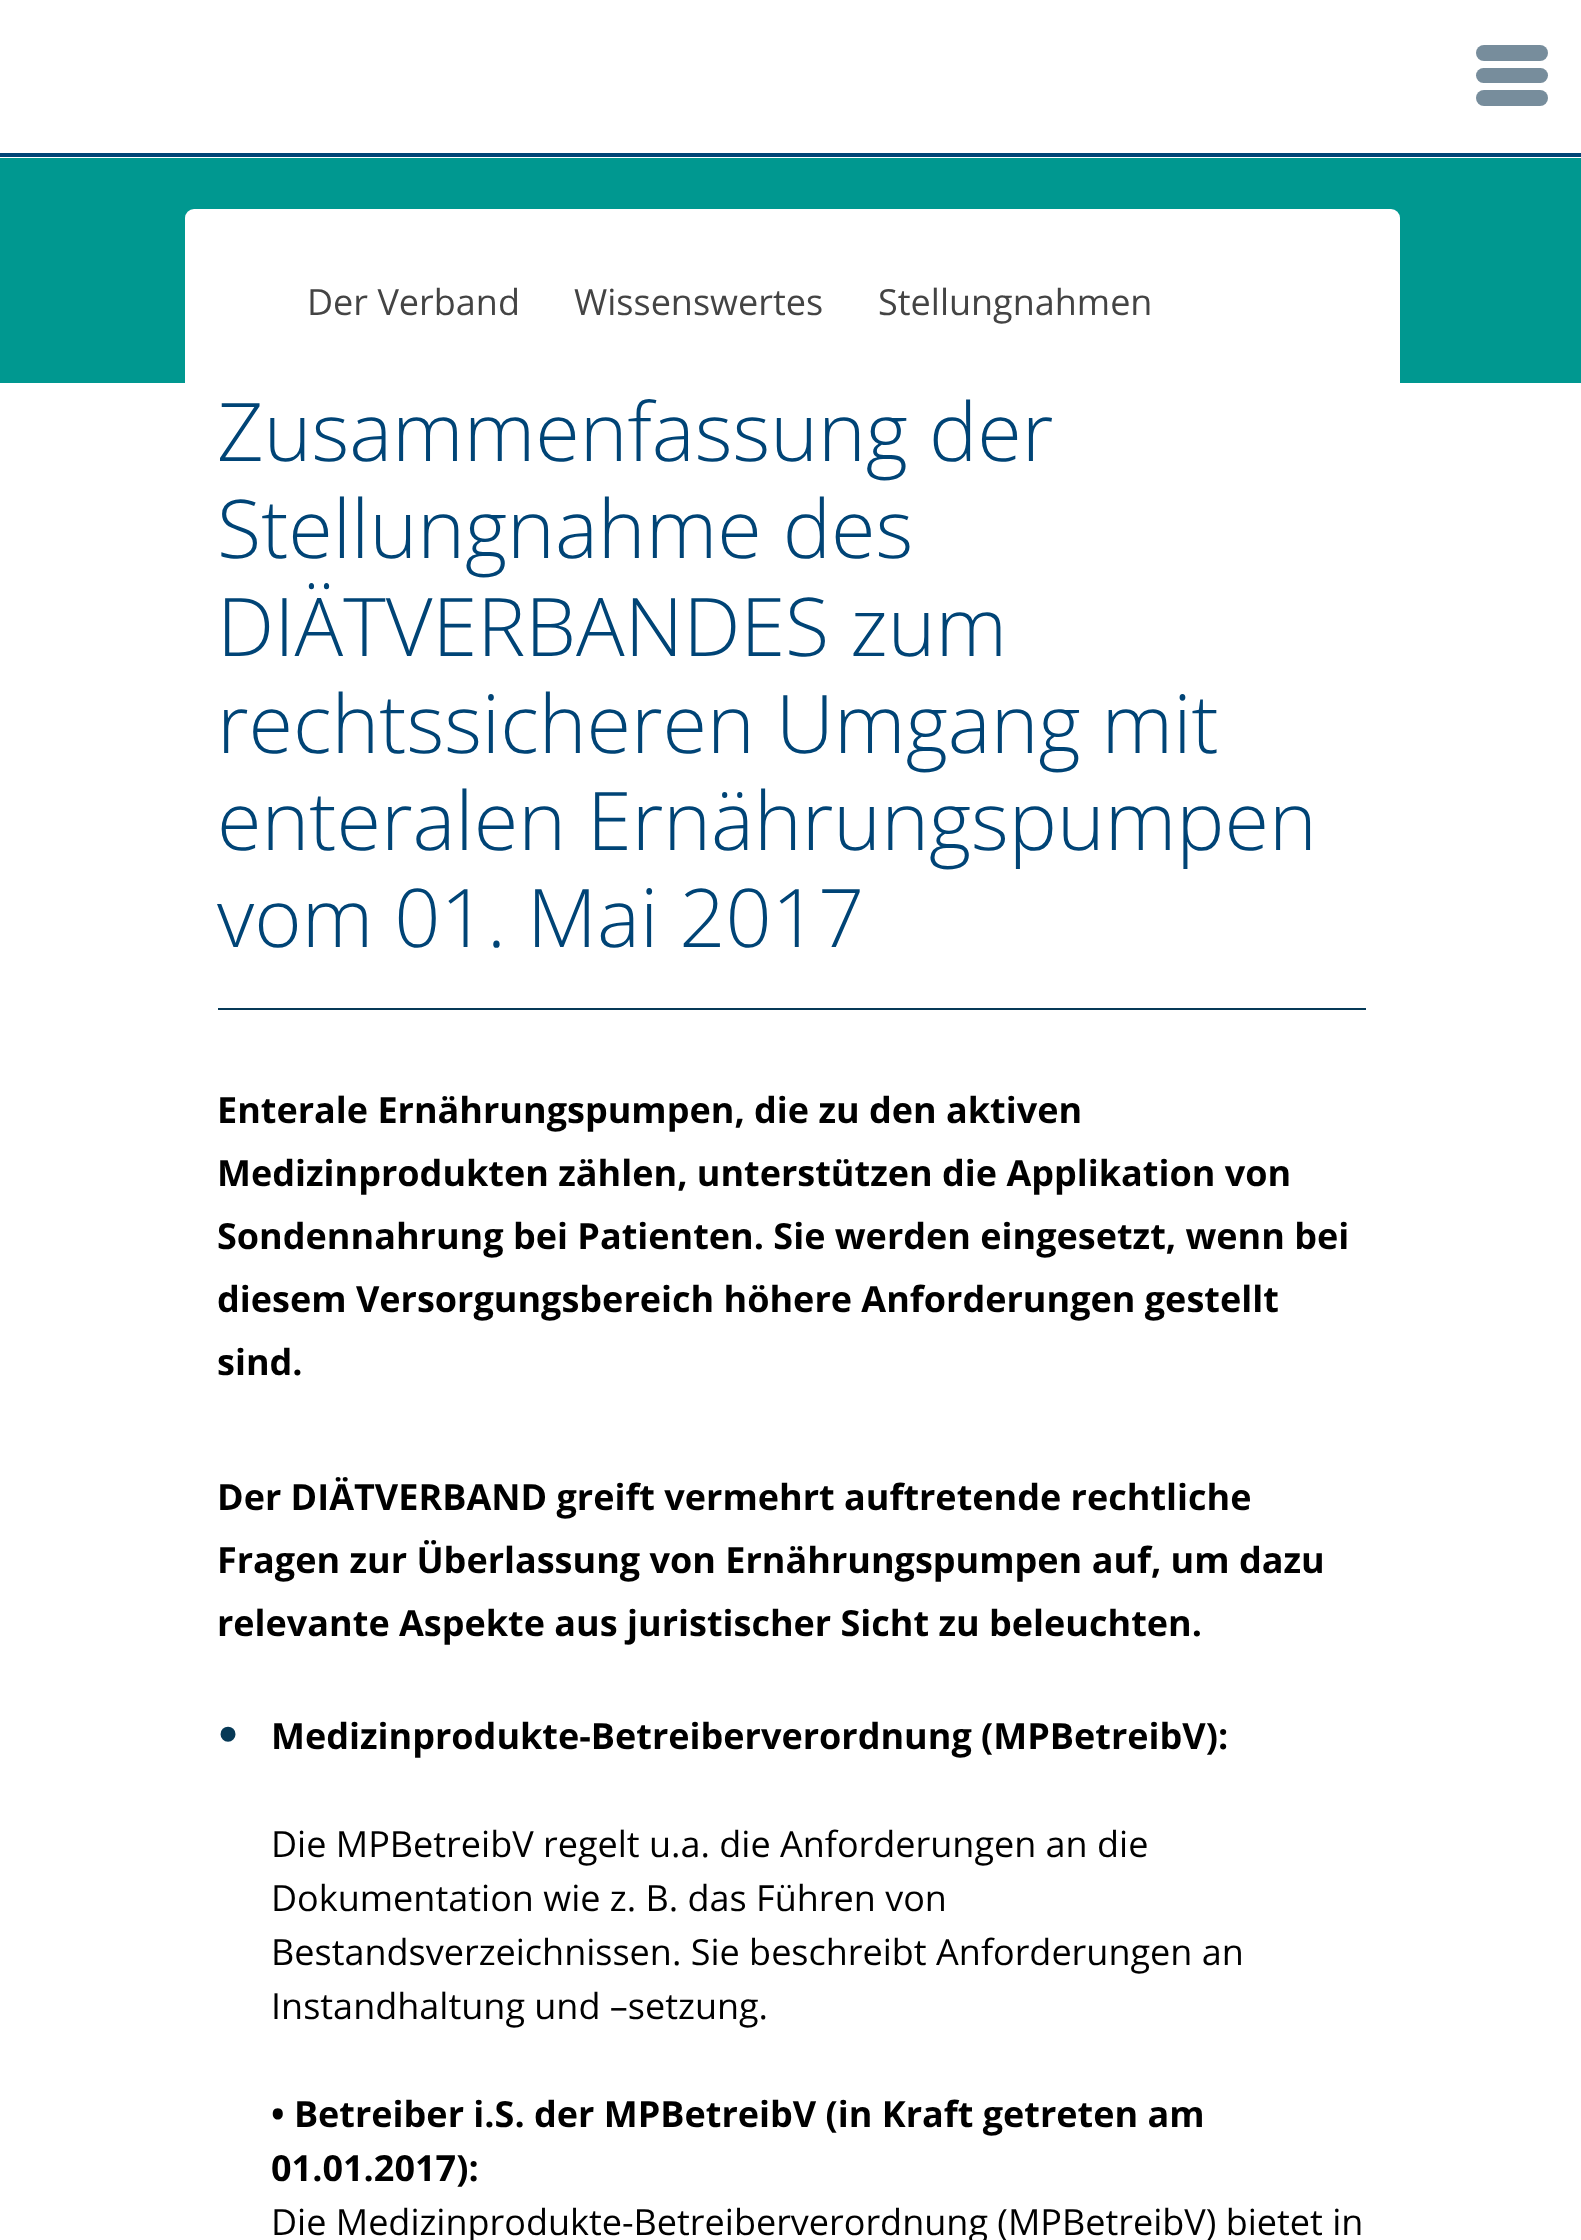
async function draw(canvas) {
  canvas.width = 1581;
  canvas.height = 2240;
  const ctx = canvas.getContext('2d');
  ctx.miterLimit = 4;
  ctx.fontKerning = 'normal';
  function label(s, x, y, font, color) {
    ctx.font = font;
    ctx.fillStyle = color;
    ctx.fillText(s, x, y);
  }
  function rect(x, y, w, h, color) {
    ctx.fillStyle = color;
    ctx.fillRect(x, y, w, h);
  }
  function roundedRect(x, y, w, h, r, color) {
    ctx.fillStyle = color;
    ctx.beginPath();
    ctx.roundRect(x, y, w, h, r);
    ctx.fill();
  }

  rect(0, 0, 1581, 2240, '#fff');
  roundedRect(1476, 68, 72, 15, 7.5, '#778d9c');
  roundedRect(1476, 45, 72, 16, 8, '#778d9c');
  roundedRect(1476, 90, 72, 16, 8, '#778d9c');
  rect(0, 153, 1581, 4, '#004475');
  rect(0, 158, 1581, 225, '#009890');
  ctx.fillStyle = '#fff';
  ctx.beginPath();
  ctx.roundRect(185, 209, 1215, 48, [9, 9, 0, 0]);
  ctx.fill();
  rect(185, 257, 1215, 126, '#fff');
  label('Der Verband', 307, 315, '36px Open Sans', '#444');
  label('Wissenswertes', 574, 315, '36px Open Sans', '#444');
  label('Stellungnahmen', 878, 315, '36px Open Sans', '#444');
  label('Zusammenfassung der', 217, 461, '300 81px Open Sans', '#004476');
  label('Stellungnahme des', 217, 558, '300 81px Open Sans', '#004476');
  label('DIÄTVERBANDES zum', 217, 656, '300 81px Open Sans', '#004476');
  label('rechtssicheren Umgang mit', 217, 753, '300 81px Open Sans', '#004476');
  label('enteralen Ernährungspumpen', 217, 850, '300 81px Open Sans', '#004476');
  label('vom 01. Mai 2017', 217, 947, '300 81px Open Sans', '#004476');
  rect(218, 1008, 1148, 2, '#063957');
  label('Enterale Ernährungspumpen, die zu den aktiven', 217, 1123, 'bold 36px Open Sans', '#000');
  label('Medizinprodukten zählen, unterstützen die Applikation von', 217, 1186, 'bold 36px Open Sans', '#000');
  label('Sondennahrung bei Patienten. Sie werden eingesetzt, wenn bei', 217, 1249, 'bold 36px Open Sans', '#000');
  label('diesem Versorgungsbereich höhere Anforderungen gestellt', 217, 1312, 'bold 36px Open Sans', '#000');
  label('sind.', 217, 1375, 'bold 36px Open Sans', '#000');
  label('Der DIÄTVERBAND greift vermehrt auftretende rechtliche', 217, 1510, 'bold 36px Open Sans', '#000');
  label('Fragen zur Überlassung von Ernährungspumpen auf, um dazu', 217, 1573, 'bold 36px Open Sans', '#000');
  label('relevante Aspekte aus juristischer Sicht zu beleuchten.', 217, 1636, 'bold 36px Open Sans', '#000');
  label('•', 217, 1755, '63px Liberation Serif', '#063956');
  label('Medizinprodukte-Betreiberverordnung (MPBetreibV):', 271, 1749, 'bold 36px Open Sans', '#000');
  label('Die MPBetreibV regelt u.a. die Anforderungen an die', 271, 1857, '36px Open Sans', '#000');
  label('Dokumentation wie z. B. das Führen von', 271, 1911, '36px Open Sans', '#000');
  label('Bestandsverzeichnissen. Sie beschreibt Anforderungen an', 271, 1965, '36px Open Sans', '#000');
  label('Instandhaltung und –setzung.', 271, 2019, '36px Open Sans', '#000');
  label('• Betreiber i.S. der MPBetreibV (in Kraft getreten am', 271, 2127, 'bold 36px Open Sans', '#000');
  label('01.01.2017):', 271, 2181, 'bold 36px Open Sans', '#000');
  label('Die Medizinprodukte-Betreiberverordnung (MPBetreibV) bietet in', 271, 2235, '36px Open Sans', '#000');
}

draw(document.querySelector('canvas'));
